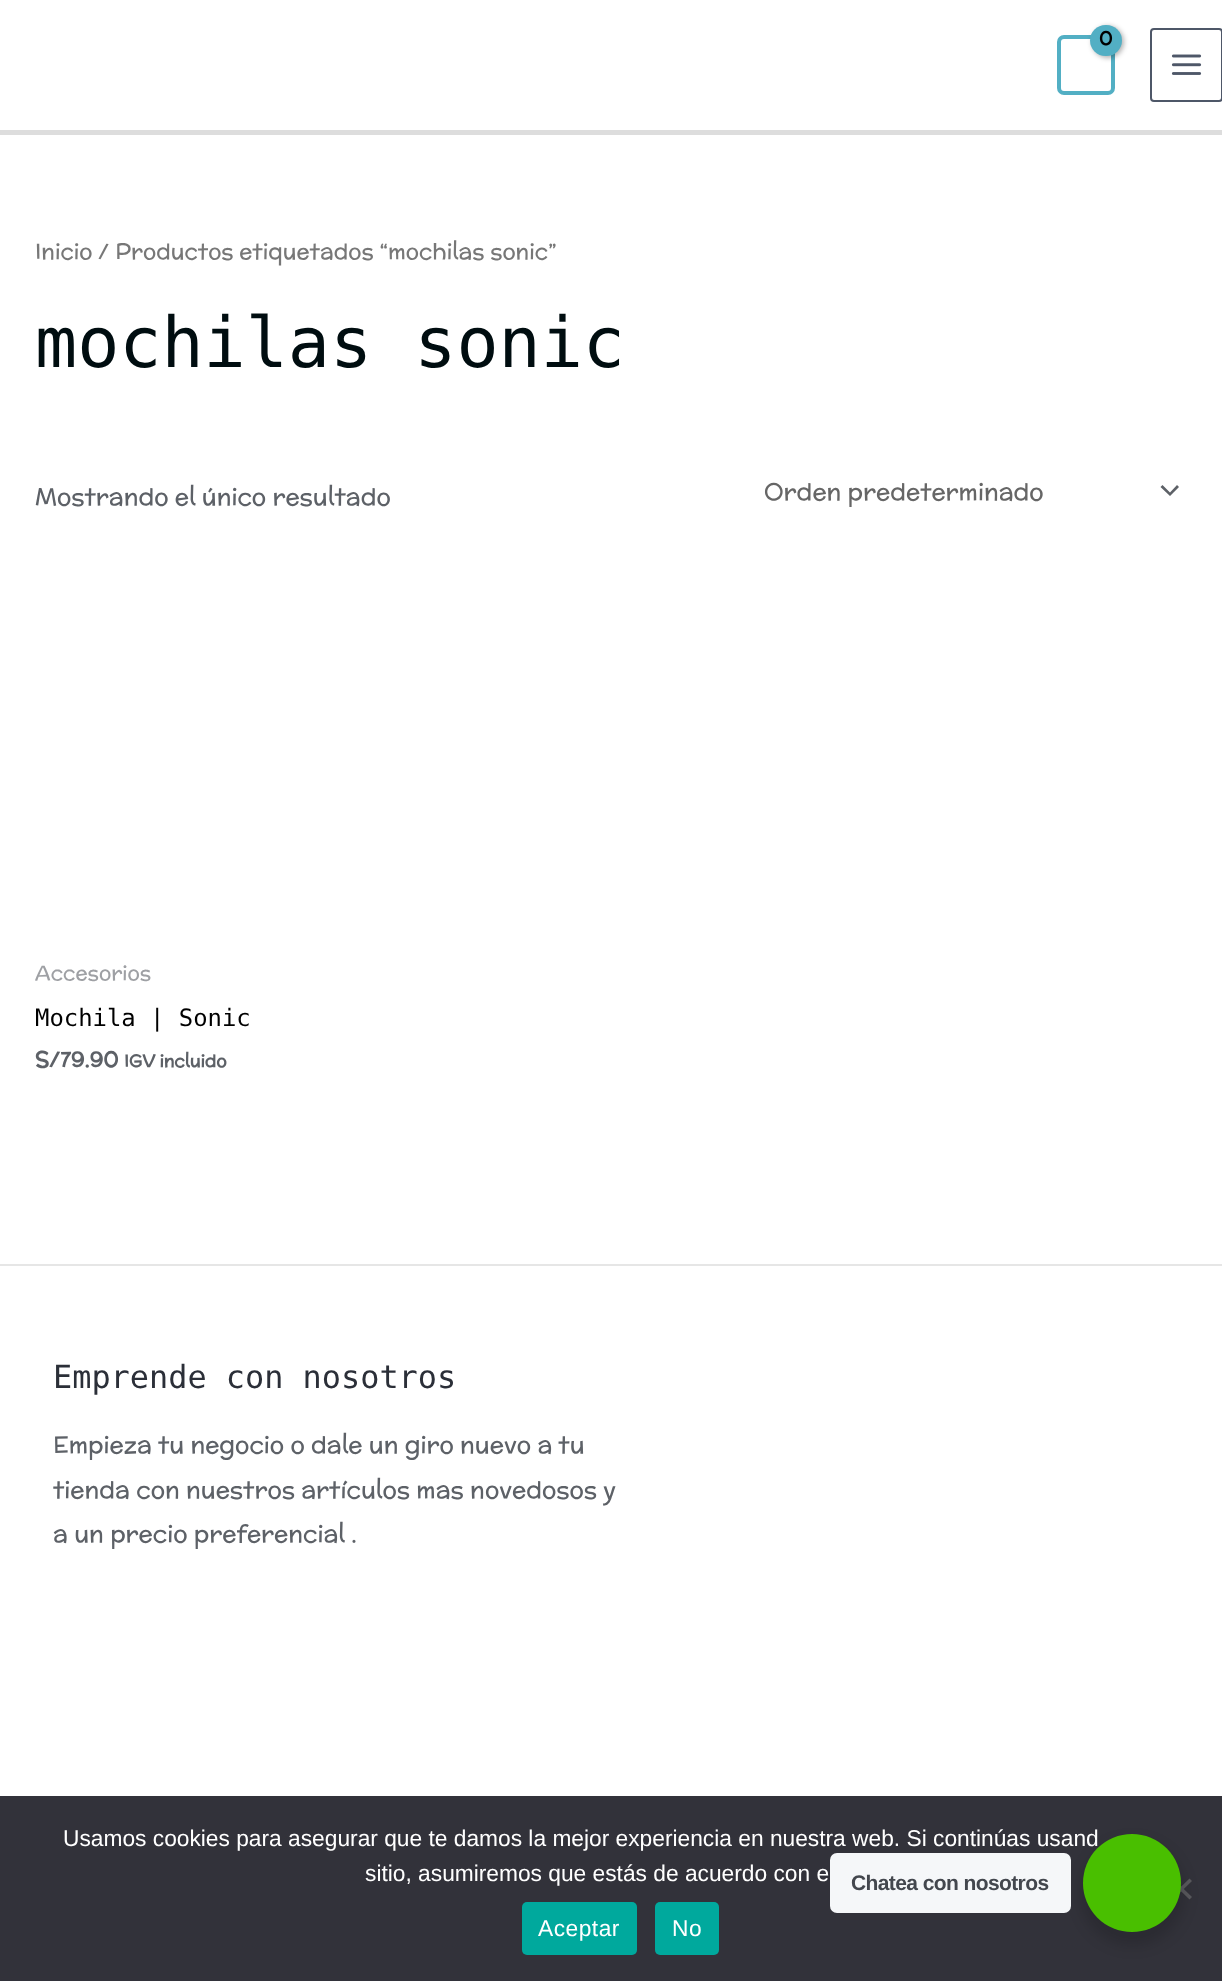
async function draw(canvas) {
  canvas.width = 1222;
  canvas.height = 1981;
  const ctx = canvas.getContext('2d');
  ctx.miterLimit = 4;
  ctx.fontKerning = 'normal';
  function label(s, x, y, font, color) {
    ctx.font = font;
    ctx.fillStyle = color;
    ctx.fillText(s, x, y);
  }
  function rect(x, y, w, h, color) {
    ctx.fillStyle = color;
    ctx.fillRect(x, y, w, h);
  }
  function roundedRect(x, y, w, h, r, color) {
    ctx.fillStyle = color;
    ctx.beginPath();
    ctx.roundRect(x, y, w, h, r);
    ctx.fill();
  }
  async function image(src, x, y, w, h) {
    const img = new Image();
    img.src = src;
    await img.decode();
    ctx.drawImage(img, x, y, w, h);
  }
  let path;

  rect(0, 0, 1222, 1981, '#fff');
  rect(0, 130, 1222, 5, '#ddd');
  ctx.beginPath();
  ctx.roundRect(1059, 37, 54, 56, 5);
  ctx.strokeStyle = '#52afc4';
  ctx.lineWidth = 4;
  ctx.stroke();
  ctx.fillStyle = '#0000004d';
  ctx.filter = 'blur(2.5px)';
  ctx.beginPath();
  ctx.roundRect(1092, 26, 32, 32, 16);
  ctx.fill();
  ctx.filter = 'none';
  roundedRect(1090, 25, 32, 31, 15.5, '#52afc4');
  ctx.letterSpacing = '-1px';
  label('0', 1099, 45, 'bold 19px McLaren', '#000');
  ctx.beginPath();
  ctx.roundRect(1151, 29, 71, 72, 3);
  ctx.strokeStyle = '#4e5768';
  ctx.lineWidth = 2;
  ctx.stroke();
  await image('assets/img1.png', 1171, 54, 31, 21);
  ctx.letterSpacing = '0px';
  label('Inicio / Productos etiquetados “mochilas sonic”', 35, 259, '22px McLaren', '#777');
  label('mochilas sonic', 35, 367, '70px DejaVu Sans Mono', '#000d10');
  label('Mostrando el único resultado', 35, 505, '23.9px McLaren', '#5d6167');
  path = new Path2D('M1160.5 487L1170 496L1179 487L1177 485L1170 492.5L1162.5 485Z');
  ctx.fill(path);
  label('Orden predeterminado', 764, 500, '23.9px McLaren', '#666');
  label('Accesorios', 35, 980, '20.5px McLaren', '#9ea0a4');
  label('Mochila | Sonic', 35, 1026, '23.9px DejaVu Sans Mono', '#000');
  label('S/79.90', 35, 1067, 'bold 21.5px McLaren', '#5d6167');
  label('IGV incluido', 124, 1067, 'bold 17.25px McLaren', '#5d6167');
  rect(0, 1264, 1222, 2, '#e6e6e6');
  label('Emprende con nosotros', 53, 1388, '31.9px DejaVu Sans Mono', '#2b2f38');
  label('Empieza tu negocio o dale un giro nuevo a tu', 53, 1453, '23.9px McLaren', '#5d6167');
  label('tienda con nuestros artículos mas novedosos y', 53, 1498, '23.9px McLaren', '#5d6167');
  label('a un precio preferencial .', 53, 1542, '23.9px McLaren', '#5d6167');
  rect(0, 1796, 1222, 185, '#32323a');
  label('Usamos cookies para asegurar que te damos la mejor experiencia en nuestra web. Si continúas usand', 63, 1846, '22.75px Liberation Sans', '#fff');
  label('sitio, asumiremos que estás de acuerdo con e', 365, 1881, '22.75px Liberation Sans', '#fff');
  ctx.fillStyle = '#59595d';
  path = new Path2D('M1189.5 1878.5L1192 1881L1173 1899.5L1170.5 1897Z');
  ctx.fill(path);
  path = new Path2D('M1170.5 1881L1173 1878.5L1192 1897L1189.5 1899.5Z');
  ctx.fill(path);
  roundedRect(522, 1902, 115, 53, 5, '#00a99d');
  ctx.letterSpacing = '0.5px';
  label('Aceptar', 538, 1936, '22.75px Liberation Sans', '#fff');
  roundedRect(655, 1902, 64, 53, 5, '#00a99d');
  label('No', 672, 1936, '22.75px Liberation Sans', '#fff');
  ctx.fillStyle = '#00000024';
  ctx.filter = 'blur(7px)';
  ctx.beginPath();
  ctx.roundRect(1080, 1841, 105, 105, 52.5);
  ctx.fill();
  ctx.filter = 'none';
  roundedRect(830, 1853, 241, 60, 7, '#f5f7f9');
  ctx.letterSpacing = '-0.6px';
  label('Chatea con nosotros', 851, 1890, 'bold 21px Liberation Sans', '#43474e');
  ctx.fillStyle = '#49bf00';
  ctx.beginPath();
  ctx.arc(1132, 1883, 49, 0, 2 * Math.PI);
  ctx.fill();
}

draw(document.querySelector('canvas'));
